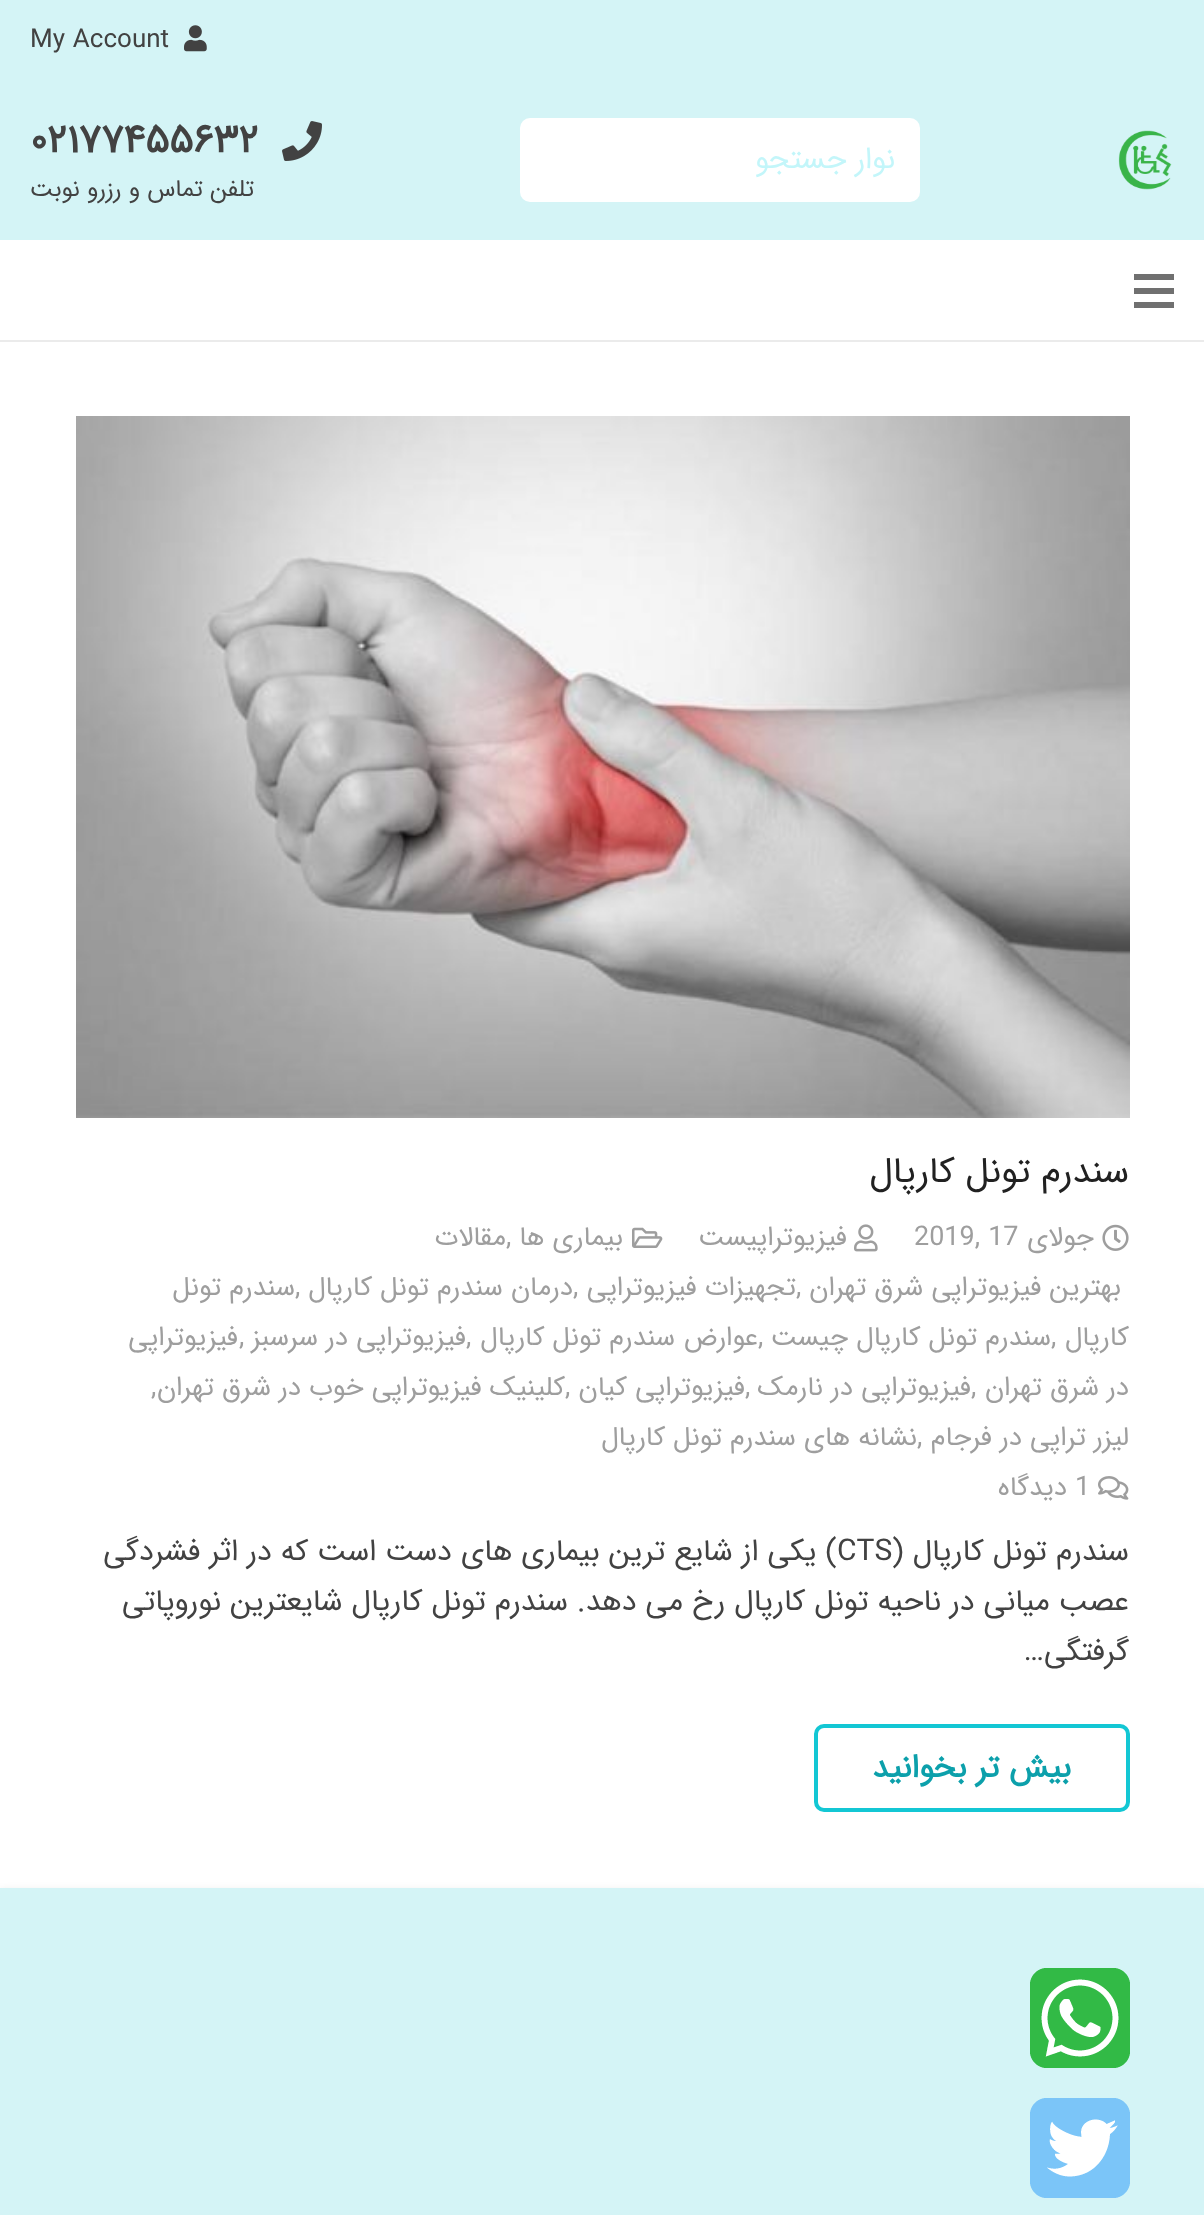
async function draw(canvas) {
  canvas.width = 1204;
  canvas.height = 2215;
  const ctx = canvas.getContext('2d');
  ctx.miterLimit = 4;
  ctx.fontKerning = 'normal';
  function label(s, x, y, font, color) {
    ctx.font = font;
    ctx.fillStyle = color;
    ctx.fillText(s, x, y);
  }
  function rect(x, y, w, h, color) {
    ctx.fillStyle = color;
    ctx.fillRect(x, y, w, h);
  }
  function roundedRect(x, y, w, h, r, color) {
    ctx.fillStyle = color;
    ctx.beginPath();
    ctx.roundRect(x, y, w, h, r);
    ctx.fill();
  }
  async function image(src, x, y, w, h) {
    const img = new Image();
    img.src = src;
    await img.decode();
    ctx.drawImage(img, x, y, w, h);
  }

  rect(0, 0, 1204, 2215, '#fff');
  rect(0, 0, 1204, 240, '#d4f4f6');
  await image('assets/img1.png', 184, 25, 23, 27);
  label('My Account', 30, 47, '26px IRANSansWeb', '#424242');
  await image('assets/img2.png', 1118, 130, 54, 60);
  roundedRect(520, 118, 400, 84, 10, '#fff');
  ctx.direction = 'rtl';
  label('نوار جستجو', 895, 168, '30px IRANSansWeb', '#c3f6fa');
  await image('assets/img3.png', 282, 121, 40, 40);
  ctx.direction = 'ltr';
  label('۰۲۱۷۷۴۵۵۶۳۲', 30, 152, 'bold 40px IRANSansWeb', '#424242');
  ctx.direction = 'rtl';
  label('تلفن تماس و رزرو نوبت', 254, 196, '24px IRANSansWeb', '#424242');
  rect(0, 340, 1204, 2, '#ebebeb');
  rect(1134, 288, 40, 6, '#707070');
  rect(1134, 274, 40, 6, '#707070');
  rect(1134, 302, 40, 6, '#707070');
  await image('assets/img4.png', 76, 416, 1054, 702);
  label('سندرم تونل کارپال', 1129, 1182, '36px IRANSansWeb', '#212121');
  await image('assets/img5.png', 1102, 1224, 27, 27);
  label('جولای', 1094, 1245, '27px IRANSansWeb', '#9e9e9e');
  ctx.direction = 'ltr';
  label('2019, 17', 914, 1245, '27px IRANSansWeb', '#9e9e9e');
  await image('assets/img6.png', 854, 1224, 24, 28);
  ctx.direction = 'rtl';
  label('فیزیوتراپیست', 847, 1245, '27px IRANSansWeb', '#9e9e9e');
  await image('assets/img7.png', 632, 1227, 31, 21);
  label('بیماری ها', 623, 1245, '27px IRANSansWeb', '#9e9e9e');
  ctx.direction = 'ltr';
  label(',', 506, 1245, '27px IRANSansWeb', '#9e9e9e');
  ctx.direction = 'rtl';
  label('مقالات', 506, 1245, '27px IRANSansWeb', '#9e9e9e');
  label('بهترین فیزیوتراپی شرق تهران', 1121, 1295, '27px IRANSansWeb', '#9e9e9e');
  ctx.direction = 'ltr';
  label(',', 796, 1295, '27px IRANSansWeb', '#9e9e9e');
  ctx.direction = 'rtl';
  label('تجهیزات فیزیوتراپی', 796, 1295, '27px IRANSansWeb', '#9e9e9e');
  ctx.direction = 'ltr';
  label(',', 573, 1295, '27px IRANSansWeb', '#9e9e9e');
  ctx.direction = 'rtl';
  label('درمان سندرم تونل کارپال', 573, 1295, '27px IRANSansWeb', '#9e9e9e');
  ctx.direction = 'ltr';
  label(',', 295, 1295, '27px IRANSansWeb', '#9e9e9e');
  ctx.direction = 'rtl';
  label('سندرم تونل', 295, 1295, '27px IRANSansWeb', '#9e9e9e');
  label('کارپال', 1129, 1345, '27px IRANSansWeb', '#9e9e9e');
  ctx.direction = 'ltr';
  label(',', 1051, 1345, '27px IRANSansWeb', '#9e9e9e');
  ctx.direction = 'rtl';
  label('سندرم تونل کارپال چیست', 1051, 1345, '27px IRANSansWeb', '#9e9e9e');
  ctx.direction = 'ltr';
  label(',', 758, 1345, '27px IRANSansWeb', '#9e9e9e');
  ctx.direction = 'rtl';
  label('عوارض سندرم تونل کارپال', 758, 1345, '27px IRANSansWeb', '#9e9e9e');
  ctx.direction = 'ltr';
  label(',', 466, 1345, '27px IRANSansWeb', '#9e9e9e');
  ctx.direction = 'rtl';
  label('فیزیوتراپی در سرسبز', 466, 1345, '27px IRANSansWeb', '#9e9e9e');
  ctx.direction = 'ltr';
  label(',', 239, 1345, '27px IRANSansWeb', '#9e9e9e');
  ctx.direction = 'rtl';
  label('فیزیوتراپی', 238, 1345, '27px IRANSansWeb', '#9e9e9e');
  label('در شرق تهران', 1129, 1395, '27px IRANSansWeb', '#9e9e9e');
  ctx.direction = 'ltr';
  label(',', 971, 1395, '27px IRANSansWeb', '#9e9e9e');
  ctx.direction = 'rtl';
  label('فیزیوتراپی در نارمک', 971, 1395, '27px IRANSansWeb', '#9e9e9e');
  ctx.direction = 'ltr';
  label(',', 745, 1395, '27px IRANSansWeb', '#9e9e9e');
  ctx.direction = 'rtl';
  label('فیزیوتراپی کیان', 745, 1395, '27px IRANSansWeb', '#9e9e9e');
  ctx.direction = 'ltr';
  label(',', 565, 1395, '27px IRANSansWeb', '#9e9e9e');
  ctx.direction = 'rtl';
  label('کلینیک فیزیوتراپی خوب در شرق تهران', 565, 1395, '27px IRANSansWeb', '#9e9e9e');
  ctx.direction = 'ltr';
  label(',', 151, 1395, '27px IRANSansWeb', '#9e9e9e');
  ctx.direction = 'rtl';
  label('لیزر تراپی در فرجام', 1129, 1445, '27px IRANSansWeb', '#9e9e9e');
  ctx.direction = 'ltr';
  label(',', 917, 1445, '27px IRANSansWeb', '#9e9e9e');
  ctx.direction = 'rtl';
  label('نشانه های سندرم تونل کارپال', 917, 1445, '27px IRANSansWeb', '#9e9e9e');
  await image('assets/img8.png', 1098, 1476, 31, 24);
  ctx.direction = 'ltr';
  label('1', 1075, 1495, '27px IRANSansWeb', '#9e9e9e');
  ctx.direction = 'rtl';
  label('دیدگاه', 1067, 1495, '27px IRANSansWeb', '#9e9e9e');
  label('سندرم تونل کارپال (', 1129, 1560, '30px IRANSansWeb', '#424242');
  ctx.direction = 'ltr';
  label('CTS', 837, 1560, '30px IRANSansWeb', '#424242');
  ctx.direction = 'rtl';
  label(') یکی از شایع ترین بیماری های دست است که در اثر فشردگی', 837, 1560, '30px IRANSansWeb', '#424242');
  label('عصب میانی در ناحیه تونل کارپال رخ می دهد. سندرم تونل کارپال شایعترین نوروپاتی', 1129, 1610, '30px IRANSansWeb', '#424242');
  label('گرفتگی…', 1129, 1660, '30px IRANSansWeb', '#424242');
  ctx.beginPath();
  ctx.roundRect(816, 1726, 312, 84, 8);
  ctx.strokeStyle = '#13c7d4';
  ctx.lineWidth = 4;
  ctx.stroke();
  label('بیش تر بخوانید', 1071, 1777, 'bold 32px IRANSansWeb', '#0ca0ab');
  ctx.fillStyle = '#00000026';
  ctx.filter = 'blur(5px)';
  ctx.beginPath();
  ctx.rect(0, 1892, 1204, 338);
  ctx.fill();
  ctx.filter = 'none';
  rect(0, 1888, 1204, 327, '#d4f4f6');
  await image('assets/img9.png', 1030, 1968, 100, 100);
  await image('assets/img10.png', 1030, 2098, 100, 100);
}

draw(document.querySelector('canvas'));
